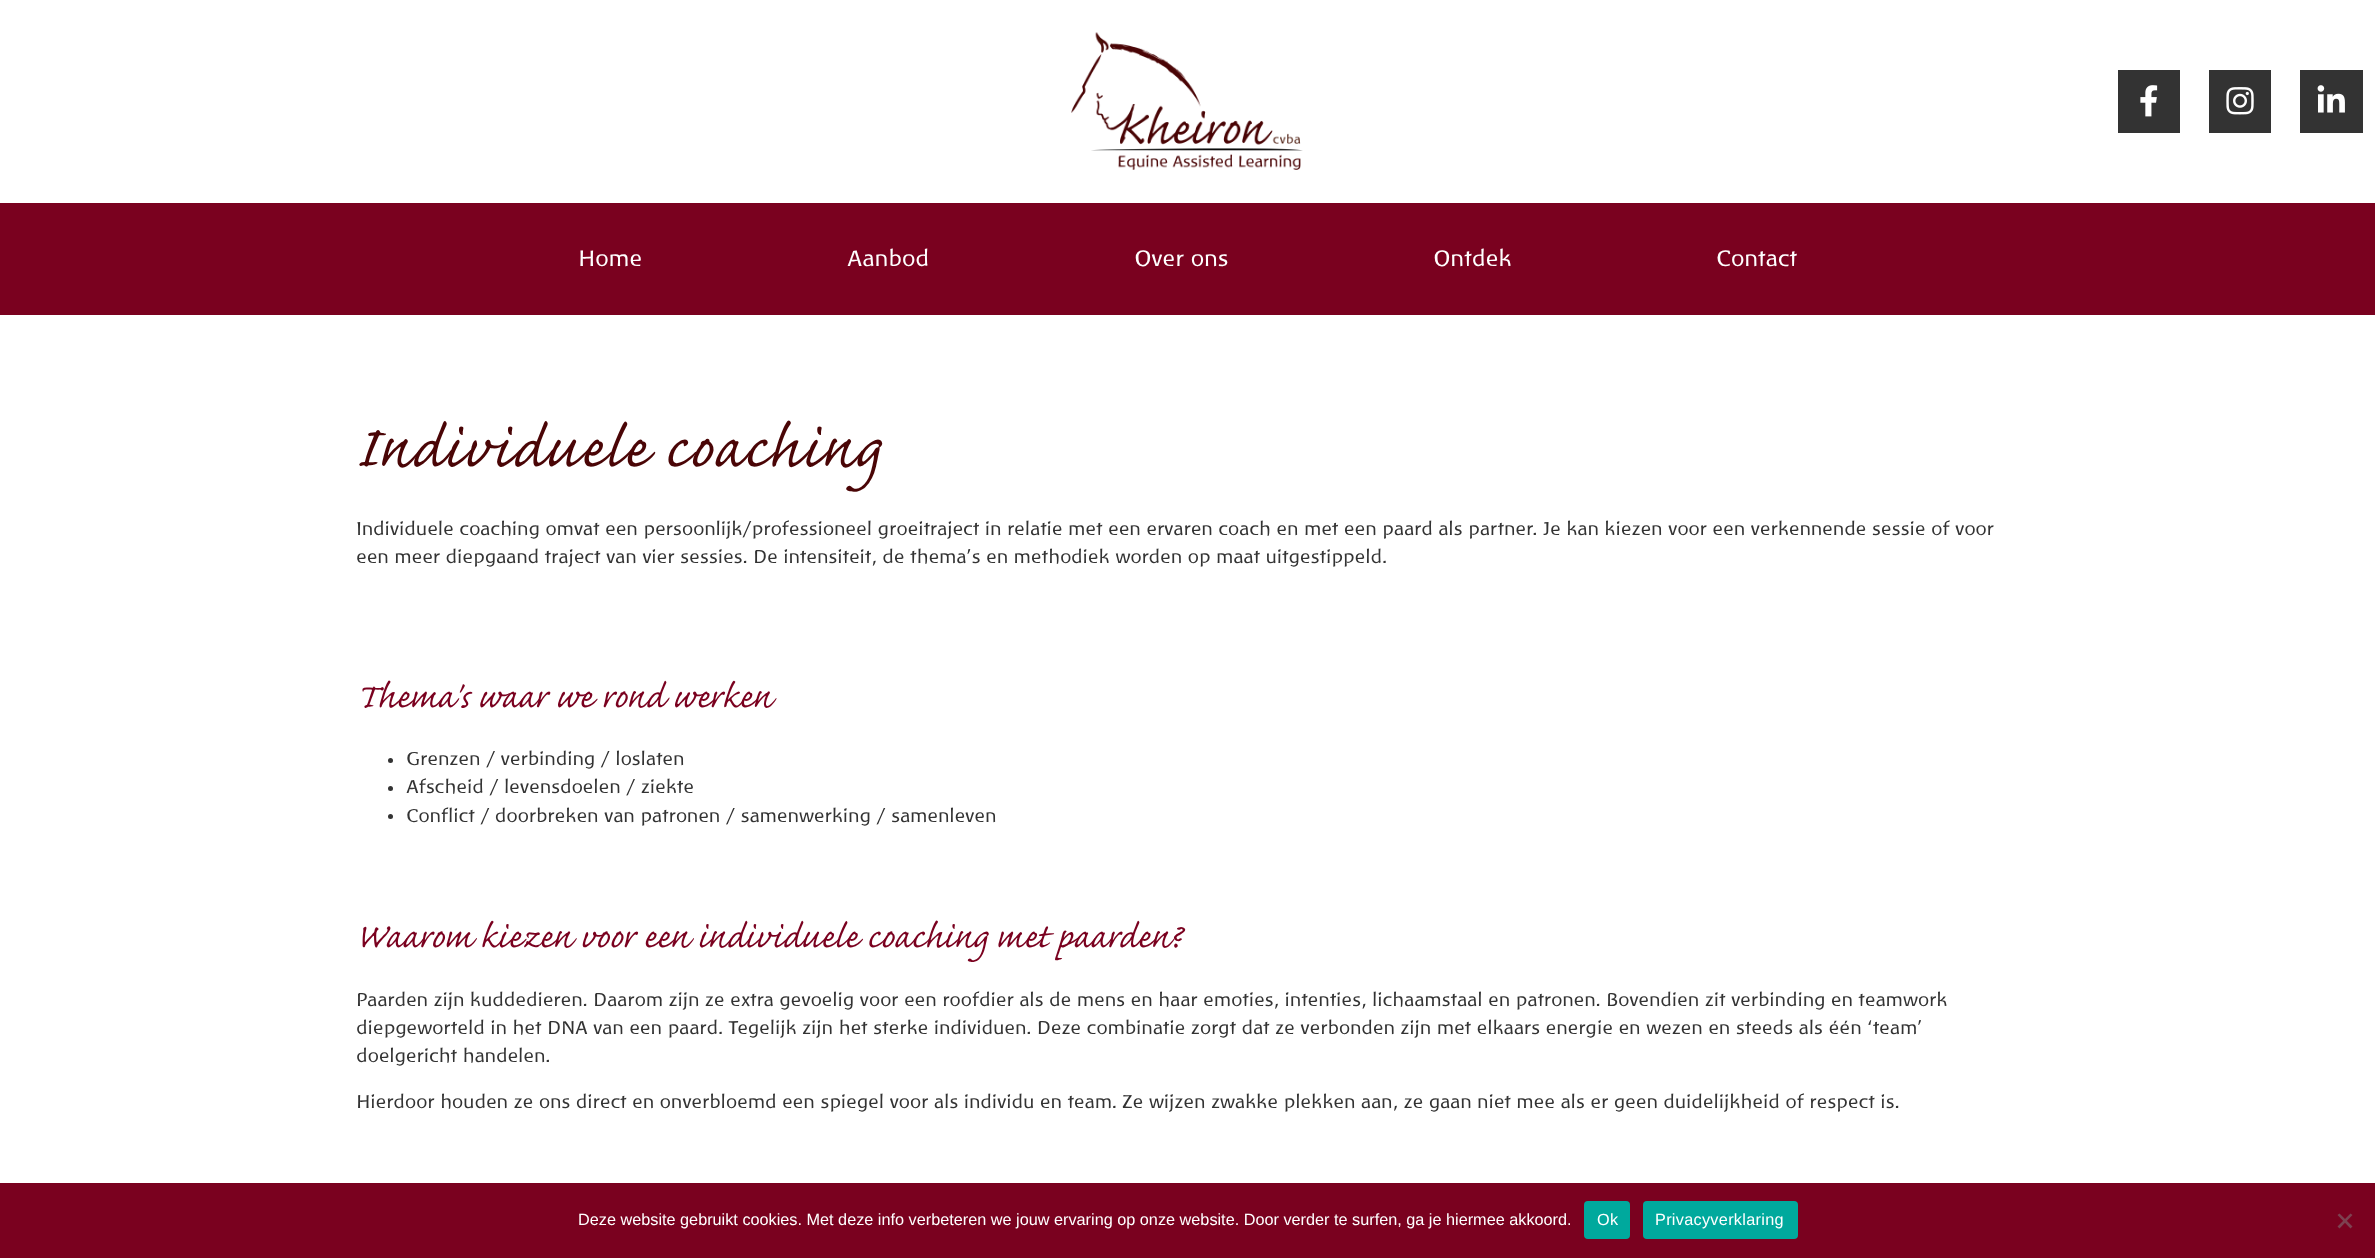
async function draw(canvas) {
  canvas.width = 2375;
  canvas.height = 1258;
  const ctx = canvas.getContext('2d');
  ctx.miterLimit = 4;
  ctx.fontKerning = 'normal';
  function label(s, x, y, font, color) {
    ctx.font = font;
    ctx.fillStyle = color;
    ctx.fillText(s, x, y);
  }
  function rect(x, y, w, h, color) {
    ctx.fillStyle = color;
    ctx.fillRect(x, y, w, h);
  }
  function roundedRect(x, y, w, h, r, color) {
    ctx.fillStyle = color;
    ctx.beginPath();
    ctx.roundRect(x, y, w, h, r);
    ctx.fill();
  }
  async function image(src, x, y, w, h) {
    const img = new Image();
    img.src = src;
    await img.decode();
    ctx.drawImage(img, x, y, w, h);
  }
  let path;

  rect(0, 0, 2375, 1258, '#fff');
  await image('assets/img1.png', 1071, 32, 232, 138);
  rect(2118, 70, 62, 63, '#333');
  await image('assets/img2.png', 2140, 85, 18, 32);
  rect(2209, 70, 62, 63, '#333');
  await image('assets/img3.png', 2226, 87, 28, 28);
  rect(2300, 70, 63, 63, '#333');
  await image('assets/img4.png', 2317, 85, 28, 28);
  rect(0, 203, 2375, 112, '#7a011f');
  label('Home', 578, 266, '22.5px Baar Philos', '#fff');
  label('Aanbod', 847, 266, '22.5px Baar Philos', '#fff');
  label('Over ons', 1134, 266, '22.5px Baar Philos', '#fff');
  label('Ontdek', 1433, 266, '22.5px Baar Philos', '#fff');
  label('Contact', 1716, 266, '22.5px Baar Philos', '#fff');
  ctx.letterSpacing = '1.25px';
  label('Individuele coaching', 356, 466, '75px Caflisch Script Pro', '#4a0506');
  ctx.letterSpacing = '0px';
  label('Individuele coaching omvat een persoonlijk/professioneel groeitraject in relatie met een ervaren coach en met een paard als partner. Je kan kiezen voor een verkennende sessie of voor', 356, 535, '18.75px Baar Philos', '#333');
  label('een meer diepgaand traject van vier sessies. De intensiteit, de thema’s en methodiek worden op maat uitgestippeld.', 356, 563, '18.75px Baar Philos', '#333');
  label('Thema\'s waar we rond werken', 356, 707, '43.75px Caflisch Script Pro', '#7a011f');
  ctx.fillStyle = '#333';
  ctx.beginPath();
  ctx.arc(390.5, 760.5, 2.5, 0, 2 * Math.PI);
  ctx.fill();
  label('Grenzen / verbinding / loslaten', 406, 765, '18.75px Baar Philos', '#333');
  ctx.beginPath();
  ctx.arc(390.5, 788.5, 2.5, 0, 2 * Math.PI);
  ctx.fill();
  label('Afscheid / levensdoelen / ziekte', 406, 793, '18.75px Baar Philos', '#333');
  ctx.beginPath();
  ctx.arc(390.5, 816.5, 2.5, 0, 2 * Math.PI);
  ctx.fill();
  label('Conflict / doorbreken van patronen / samenwerking / samenleven', 406, 822, '18.75px Baar Philos', '#333');
  label('Waarom kiezen voor een individuele coaching met paarden?', 356, 947, '43.75px Caflisch Script Pro', '#7a011f');
  label('Paarden zijn kuddedieren. Daarom zijn ze extra gevoelig voor een roofdier als de mens en haar emoties, intenties, lichaamstaal en patronen. Bovendien zit verbinding en teamwork', 356, 1006, '18.75px Baar Philos', '#333');
  label('diepgeworteld in het DNA van een paard. Tegelijk zijn het sterke individuen. Deze combinatie zorgt dat ze verbonden zijn met elkaars energie en wezen en steeds als één ‘team’', 356, 1034, '18.75px Baar Philos', '#333');
  label('doelgericht handelen.', 356, 1062, '18.75px Baar Philos', '#333');
  label('Hierdoor houden ze ons direct en onverbloemd een spiegel voor als individu en team. Ze wijzen zwakke plekken aan, ze gaan niet mee als er geen duidelijkheid of respect is.', 356, 1108, '18.75px Baar Philos', '#333');
  rect(0, 1183, 2375, 75, '#7a011f');
  label('Deze website gebruikt cookies. Met deze info verbeteren we jouw ervaring op onze website. Door verder te surfen, ga je hiermee akkoord.', 578, 1225, '16.25px Liberation Sans', '#fff');
  roundedRect(1584, 1201, 46, 38, 4, '#00a99d');
  ctx.letterSpacing = '0.3px';
  label('Ok', 1597, 1225, '16.25px Liberation Sans', '#fff');
  roundedRect(1643, 1201, 155, 38, 4, '#00a99d');
  label('Privacyverklaring', 1655, 1225, '16.25px Liberation Sans', '#fff');
  ctx.fillStyle = '#7d4150';
  path = new Path2D('M2350.5 1213.5L2352.5 1215L2339.5 1228.5L2337.5 1226.5Z');
  ctx.fill(path);
  path = new Path2D('M2337.5 1215L2339.5 1213.5L2352.5 1226.5L2350.5 1228.5Z');
  ctx.fill(path);
}

draw(document.querySelector('canvas'));
